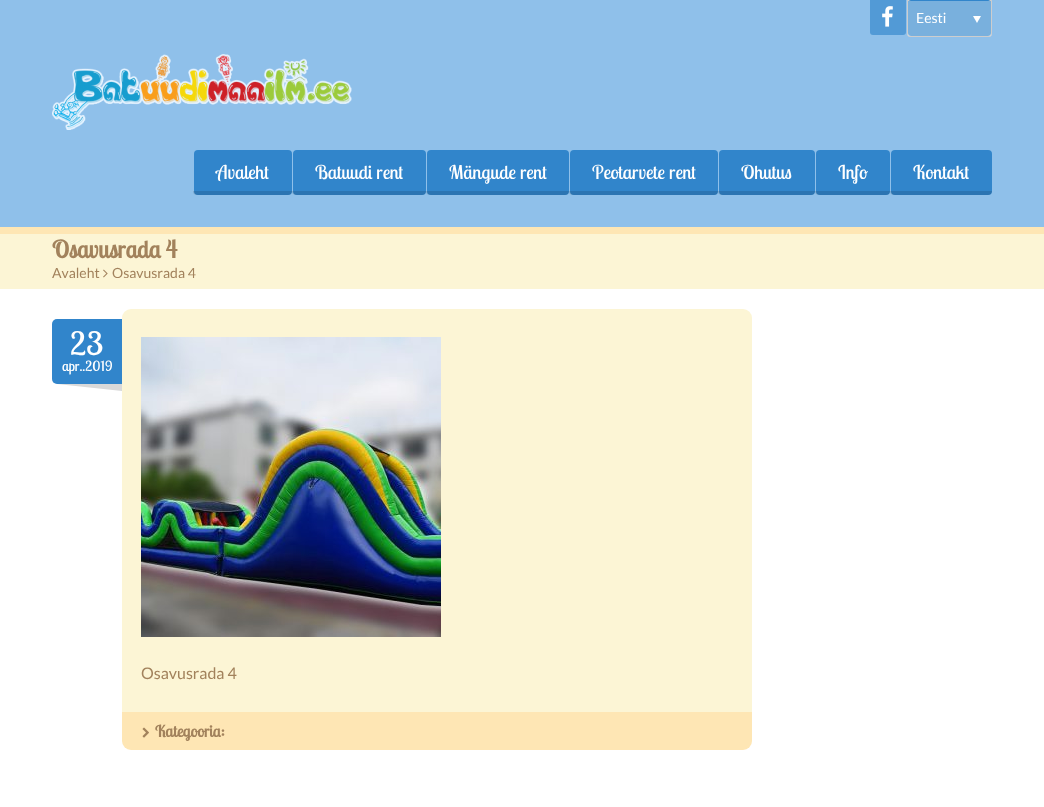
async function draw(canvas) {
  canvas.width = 1044;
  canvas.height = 807;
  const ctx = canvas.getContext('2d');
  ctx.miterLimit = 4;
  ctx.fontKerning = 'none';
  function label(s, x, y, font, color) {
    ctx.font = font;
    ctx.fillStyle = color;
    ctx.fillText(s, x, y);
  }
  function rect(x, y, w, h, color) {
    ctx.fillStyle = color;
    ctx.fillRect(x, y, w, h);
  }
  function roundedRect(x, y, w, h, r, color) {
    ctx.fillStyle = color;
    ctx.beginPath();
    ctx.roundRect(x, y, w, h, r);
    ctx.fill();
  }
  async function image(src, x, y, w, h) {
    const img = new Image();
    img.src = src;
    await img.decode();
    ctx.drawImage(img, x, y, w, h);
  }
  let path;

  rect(0, 0, 1044, 807, '#fff');
  rect(0, 0, 1044, 227, '#8fc0ea');
  ctx.fillStyle = '#529ad6';
  ctx.beginPath();
  ctx.roundRect(870, 0, 36, 35, [0, 0, 3, 3]);
  ctx.fill();
  await image('assets/img1.png', 882, 6, 11, 21);
  ctx.fillStyle = '#fff';
  ctx.beginPath();
  ctx.roundRect(907.5, 0.5, 84, 36, [0, 0, 2.5, 2.5]);
  ctx.fill();
  ctx.strokeStyle = '#cdcdcd';
  ctx.stroke();
  ctx.fillStyle = '#3185cb';
  path = new Path2D('M908-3H991V-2C991-.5 989.5 1 988 1H911C909.5 1 908-.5 908-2Z');
  ctx.fill(path);
  ctx.fillStyle = '#3185cba6';
  ctx.beginPath();
  ctx.roundRect(908, 1, 83, 35, [0, 0, 3, 3]);
  ctx.fill();
  label('Eesti', 916, 23, '14px Lato', '#fff');
  path = new Path2D('M973 16H981L977 23Z');
  ctx.fill(path);
  await image('assets/img2.png', 52, 54, 300, 76);
  roundedRect(194, 150, 98, 45, 4, '#3185cb');
  label('Avaleht', 216, 179, '19px Lobster Two', '#fff');
  ctx.fillStyle = '#0000001f';
  ctx.beginPath();
  ctx.roundRect(193, 191, 99, 4, [0, 0, 4, 4]);
  ctx.fill();
  roundedRect(293, 150, 133, 45, 4, '#3185cb');
  label('Batuudi rent', 315, 179, '19px Lobster Two', '#fff');
  ctx.fillStyle = '#0000001f';
  ctx.beginPath();
  ctx.roundRect(292, 191, 134, 4, [0, 0, 4, 4]);
  ctx.fill();
  roundedRect(427, 150, 142, 45, 4, '#3185cb');
  label('Mängude rent', 449, 179, '19px Lobster Two', '#fff');
  ctx.fillStyle = '#0000001f';
  ctx.beginPath();
  ctx.roundRect(426, 191, 143, 4, [0, 0, 4, 4]);
  ctx.fill();
  roundedRect(570, 150, 148, 45, 4, '#3185cb');
  label('Peotarvete rent', 592, 179, '19px Lobster Two', '#fff');
  ctx.fillStyle = '#0000001f';
  ctx.beginPath();
  ctx.roundRect(569, 191, 149, 4, [0, 0, 4, 4]);
  ctx.fill();
  roundedRect(719, 150, 96, 45, 4, '#3185cb');
  label('Ohutus', 741, 179, '19px Lobster Two', '#fff');
  ctx.fillStyle = '#0000001f';
  ctx.beginPath();
  ctx.roundRect(718, 191, 97, 4, [0, 0, 4, 4]);
  ctx.fill();
  roundedRect(816, 150, 74, 45, 4, '#3185cb');
  label('Info', 838, 179, '19px Lobster Two', '#fff');
  ctx.fillStyle = '#0000001f';
  ctx.beginPath();
  ctx.roundRect(815, 191, 75, 4, [0, 0, 4, 4]);
  ctx.fill();
  roundedRect(891, 150, 101, 45, 4, '#3185cb');
  label('Kontakt', 913, 179, '19px Lobster Two', '#fff');
  ctx.fillStyle = '#0000001f';
  ctx.beginPath();
  ctx.roundRect(890, 191, 102, 4, [0, 0, 4, 4]);
  ctx.fill();
  rect(0, 234, 1044, 55, '#fcf5d5');
  rect(0, 227, 1044, 7, '#fee6b4');
  label('Osavusrada 4', 52, 258, 'bold 24px Lobster Two', '#a2825c');
  label('Avaleht', 52, 278, '14px Lato', '#a2825c');
  await image('assets/img3.png', 103, 269, 5, 9);
  label('Osavusrada 4', 112, 278, '14px Lato', '#a2825c');
  ctx.fillStyle = '#d9d9d9';
  path = new Path2D('M57 364L122 371V391L57 384Z');
  ctx.fill(path);
  ctx.fillStyle = '#3185cb';
  ctx.beginPath();
  ctx.roundRect(52, 319, 70, 65, [5, 0, 0, 5]);
  ctx.fill();
  label('23', 70, 355, '32px Lobster Two', '#fff');
  label('apr..2019', 62, 371, '14px Lobster Two', '#fff');
  roundedRect(122, 309, 630, 423, 9, '#fcf5d5');
  await image('assets/img4.png', 141, 337, 300, 300);
  label('Osavusrada 4', 141, 679, '16px Lato', '#a2825c');
  ctx.fillStyle = '#fee6b4';
  ctx.beginPath();
  ctx.roundRect(122, 712, 630, 38, [0, 0, 9, 9]);
  ctx.fill();
  await image('assets/img5.png', 142, 727, 7, 11);
  label('Kategooria:', 155, 737, 'bold 16px Lobster Two', '#a2825c');
}

draw(document.querySelector('canvas'));
